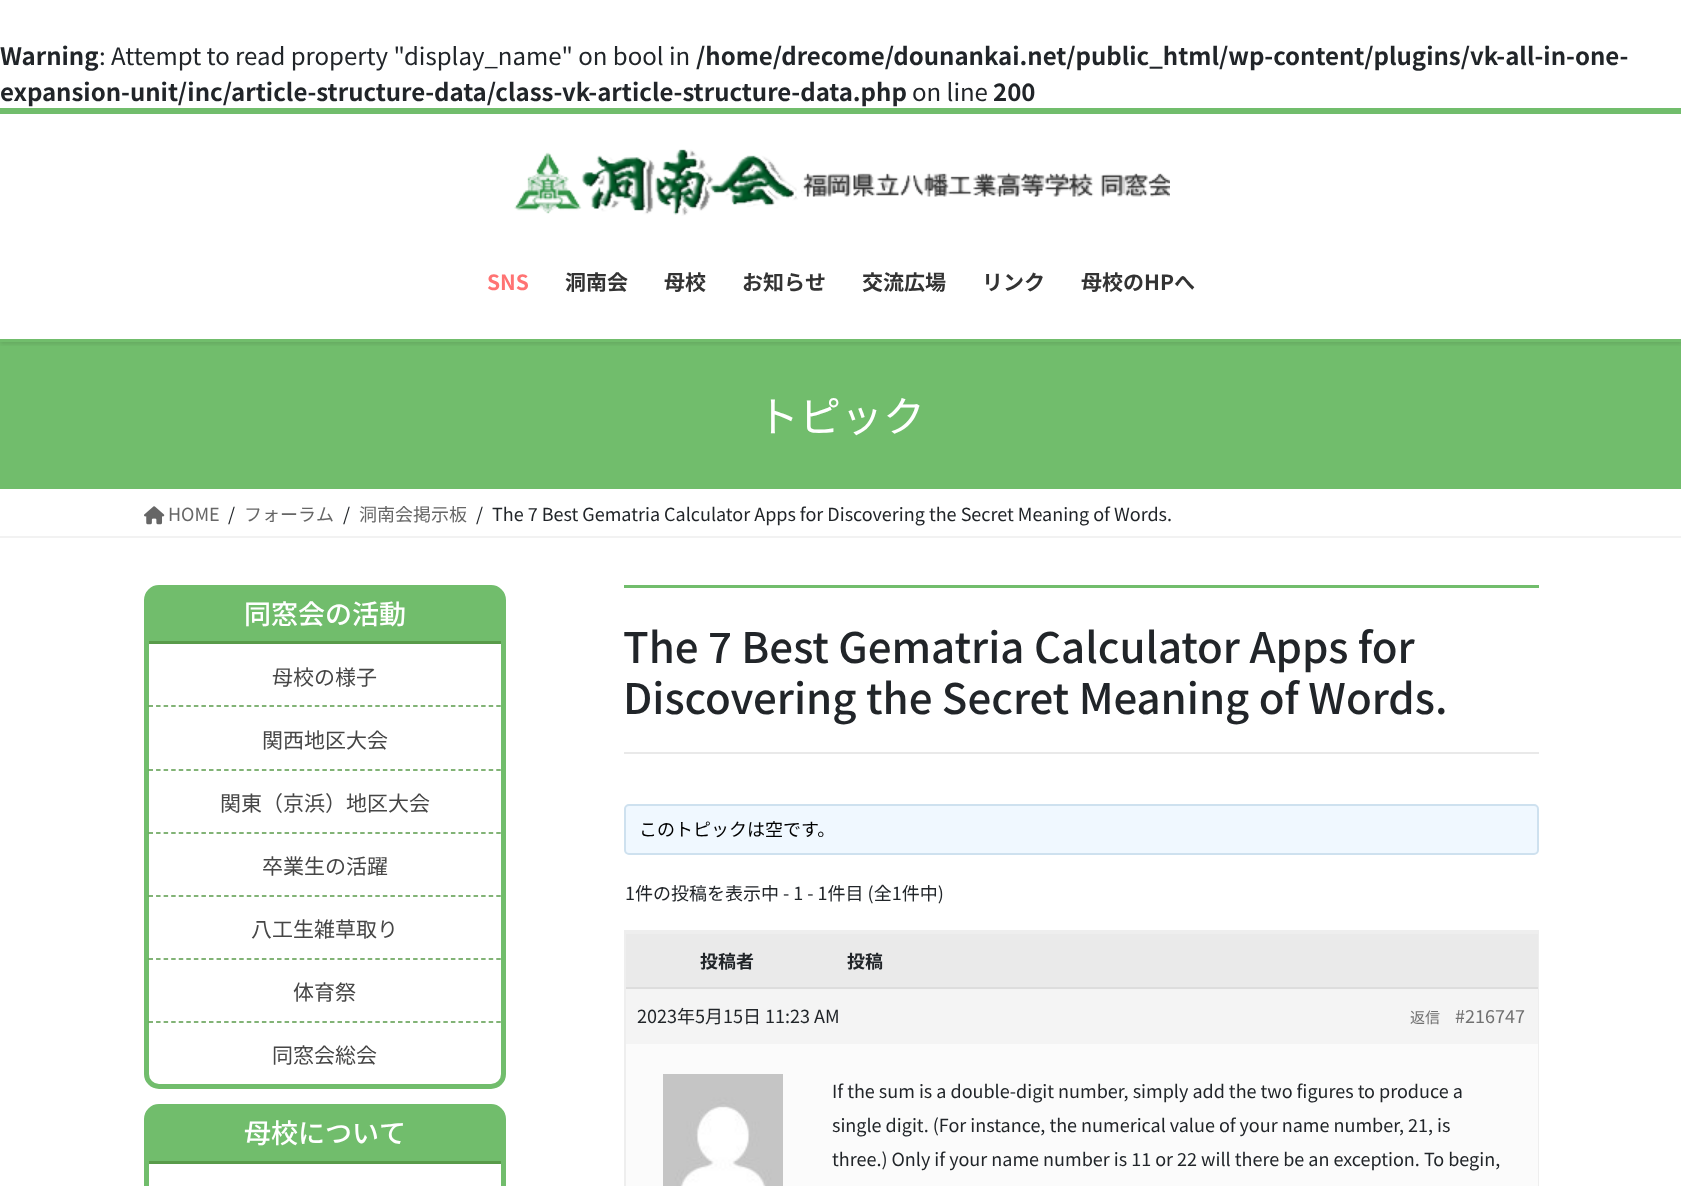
async function draw(canvas) {
  canvas.width = 1681;
  canvas.height = 1186;
  const ctx = canvas.getContext('2d');
  ctx.miterLimit = 4;
  ctx.fontKerning = 'normal';
  function label(s, x, y, font, color) {
    ctx.font = font;
    ctx.fillStyle = color;
    ctx.fillText(s, x, y);
  }
  function rect(x, y, w, h, color) {
    ctx.fillStyle = color;
    ctx.fillRect(x, y, w, h);
  }
  async function image(src, x, y, w, h) {
    const img = new Image();
    img.src = src;
    await img.decode();
    ctx.drawImage(img, x, y, w, h);
  }
  let path;

  rect(0, 0, 1681, 1186, '#fff');
  label('Warning', 0, 65, 'bold 24px Noto Sans JP', '#212529');
  label(': Attempt to read property "display_name" on bool in', 99, 65, '24px Noto Sans JP', '#212529');
  label('/home/drecome/dounankai.net/public_html/wp-content/plugins/vk-all-in-one-', 696, 65, 'bold 24px Noto Sans JP', '#212529');
  label('expansion-unit/inc/article-structure-data/class-vk-article-structure-data.php', 0, 101, 'bold 24px Noto Sans JP', '#212529');
  label('on line', 912, 101, '24px Noto Sans JP', '#212529');
  label('200', 993, 101, 'bold 24px Noto Sans JP', '#212529');
  rect(0, 342, 1681, 147, '#71bd6c');
  ctx.save();
  ctx.beginPath();
  ctx.rect(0, 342, 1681, 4);
  ctx.clip();
  ctx.fillStyle = '#0000001a';
  ctx.filter = 'blur(2px)';
  ctx.beginPath();
  ctx.rect(0, 110, 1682, 234);
  ctx.fill();
  ctx.filter = 'none';
  ctx.restore();
  rect(0, 108, 1681, 6, '#71bd6c');
  rect(0, 339, 1681, 3, '#71bd6c');
  await image('assets/img1.png', 514, 149, 656, 67);
  label('SNS', 487, 290, 'bold 21px Noto Sans JP', '#ff7373');
  label('洞南会', 565, 290, 'bold 21px Noto Sans JP', '#333');
  label('母校', 664, 290, 'bold 21px Noto Sans JP', '#333');
  label('お知らせ', 742, 290, 'bold 21px Noto Sans JP', '#333');
  label('交流広場', 862, 290, 'bold 21px Noto Sans JP', '#333');
  label('リンク', 982, 290, 'bold 21px Noto Sans JP', '#333');
  label('母校のHPへ', 1081, 290, 'bold 21px Noto Sans JP', '#333');
  label('トピック', 757, 432, '42px Noto Sans JP', '#fff');
  rect(0, 536, 1681, 2, '#f2f2f2');
  await image('assets/img2.png', 144, 506, 21, 19);
  label('HOME', 168, 521, '18px Noto Sans JP', '#666');
  label('/', 228, 521, '18px Noto Sans JP', '#212529');
  label('フォーラム', 244, 521, '18px Noto Sans JP', '#666');
  label('/', 343, 521, '18px Noto Sans JP', '#212529');
  label('洞南会掲示板', 359, 521, '18px Noto Sans JP', '#666');
  label('/', 476, 521, '18px Noto Sans JP', '#212529');
  label('The 7 Best Gematria Calculator Apps for Discovering the Secret Meaning of Words.', 492, 521, '18px Noto Sans JP', '#212529');
  ctx.beginPath();
  ctx.roundRect(146.5, 587.5, 357, 499, 12.5);
  ctx.strokeStyle = '#71bd6c';
  ctx.lineWidth = 5;
  ctx.stroke();
  rect(149, 590, 352, 51, '#71bd6c');
  rect(149, 641, 352, 3, '#599b4a');
  label('同窓会の活動', 244, 624, '500 27px Noto Sans JP', '#fff');
  path = new Path2D('M148.5 706H501');
  ctx.strokeStyle = '#599b4a';
  ctx.lineWidth = 1.5;
  ctx.setLineDash([4.5, 3.06]);
  ctx.stroke(path);
  label('母校の様子', 272, 685, '21px Noto Sans JP', '#464646');
  path = new Path2D('M148.5 770H501');
  ctx.stroke(path);
  label('関西地区大会', 262, 748, '21px Noto Sans JP', '#464646');
  path = new Path2D('M148.5 833H501');
  ctx.stroke(path);
  label('関東（京浜）地区大会', 220, 811, '21px Noto Sans JP', '#464646');
  path = new Path2D('M148.5 896H501');
  ctx.stroke(path);
  label('卒業生の活躍', 262, 874, '21px Noto Sans JP', '#464646');
  path = new Path2D('M148.5 959H501');
  ctx.stroke(path);
  label('八工生雑草取り', 251, 937, '21px Noto Sans JP', '#464646');
  path = new Path2D('M148.5 1022H501');
  ctx.stroke(path);
  label('体育祭', 293, 1000, '21px Noto Sans JP', '#464646');
  label('同窓会総会', 272, 1063, '21px Noto Sans JP', '#464646');
  ctx.beginPath();
  ctx.roundRect(146.5, 1106.5, 357, 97, 12.5);
  ctx.strokeStyle = '#71bd6c';
  ctx.lineWidth = 5;
  ctx.setLineDash([]);
  ctx.stroke();
  rect(149, 1109, 352, 52, '#71bd6c');
  rect(149, 1161, 352, 3, '#599b4a');
  label('母校について', 244, 1143, '500 27px Noto Sans JP', '#fff');
  rect(624, 585, 915, 3, '#71bd6c');
  rect(624, 752, 915, 2, '#e9e9e9');
  label('The 7 Best Gematria Calculator Apps for', 623, 663, '500 42px Noto Sans JP', '#212529');
  label('Discovering the Secret Meaning of Words.', 623, 714, '500 42px Noto Sans JP', '#212529');
  ctx.fillStyle = '#f0f8ff';
  ctx.beginPath();
  ctx.roundRect(625, 805, 913, 49, 4);
  ctx.fill();
  ctx.strokeStyle = '#cee1ef';
  ctx.lineWidth = 2;
  ctx.stroke();
  label('このトピックは空です。', 639, 836, '18px Noto Sans JP', '#000');
  label('1件の投稿を表示中 - 1 - 1件目 (全1件中)', 625, 900, '18px Noto Sans JP', '#212529');
  ctx.strokeStyle = '#eee';
  ctx.strokeRect(625, 931, 913, 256);
  rect(626, 934, 912, 53, '#eaeaea');
  rect(626, 932, 912, 2, '#eee');
  label('投稿者', 700, 968, 'bold 18px Noto Sans JP', '#212529');
  label('投稿', 847, 968, 'bold 18px Noto Sans JP', '#212529');
  rect(626, 989, 912, 55, '#f4f4f4');
  rect(626, 987, 912, 2, '#ddd');
  label('2023年5月15日 11:23 AM', 637, 1023, '18px Noto Sans JP', '#212529');
  label('返信', 1410, 1023, '15px Noto Sans JP', '#707070');
  label('#216747', 1455, 1023, '18px Noto Sans JP', '#707070');
  rect(626, 1044, 912, 142, '#fbfbfb');
  await image('assets/img3.png', 663, 1074, 120, 112);
  label('If the sum is a double-digit number, simply add the two figures to produce a', 832, 1098, '18px Noto Sans JP', '#212529');
  label('single digit. (For instance, the numerical value of your name number, 21, is', 832, 1132, '18px Noto Sans JP', '#212529');
  label('three.) Only if your name number is 11 or 22 will there be an exception. To begin,', 832, 1166, '18px Noto Sans JP', '#212529');
}

draw(document.querySelector('canvas'));
